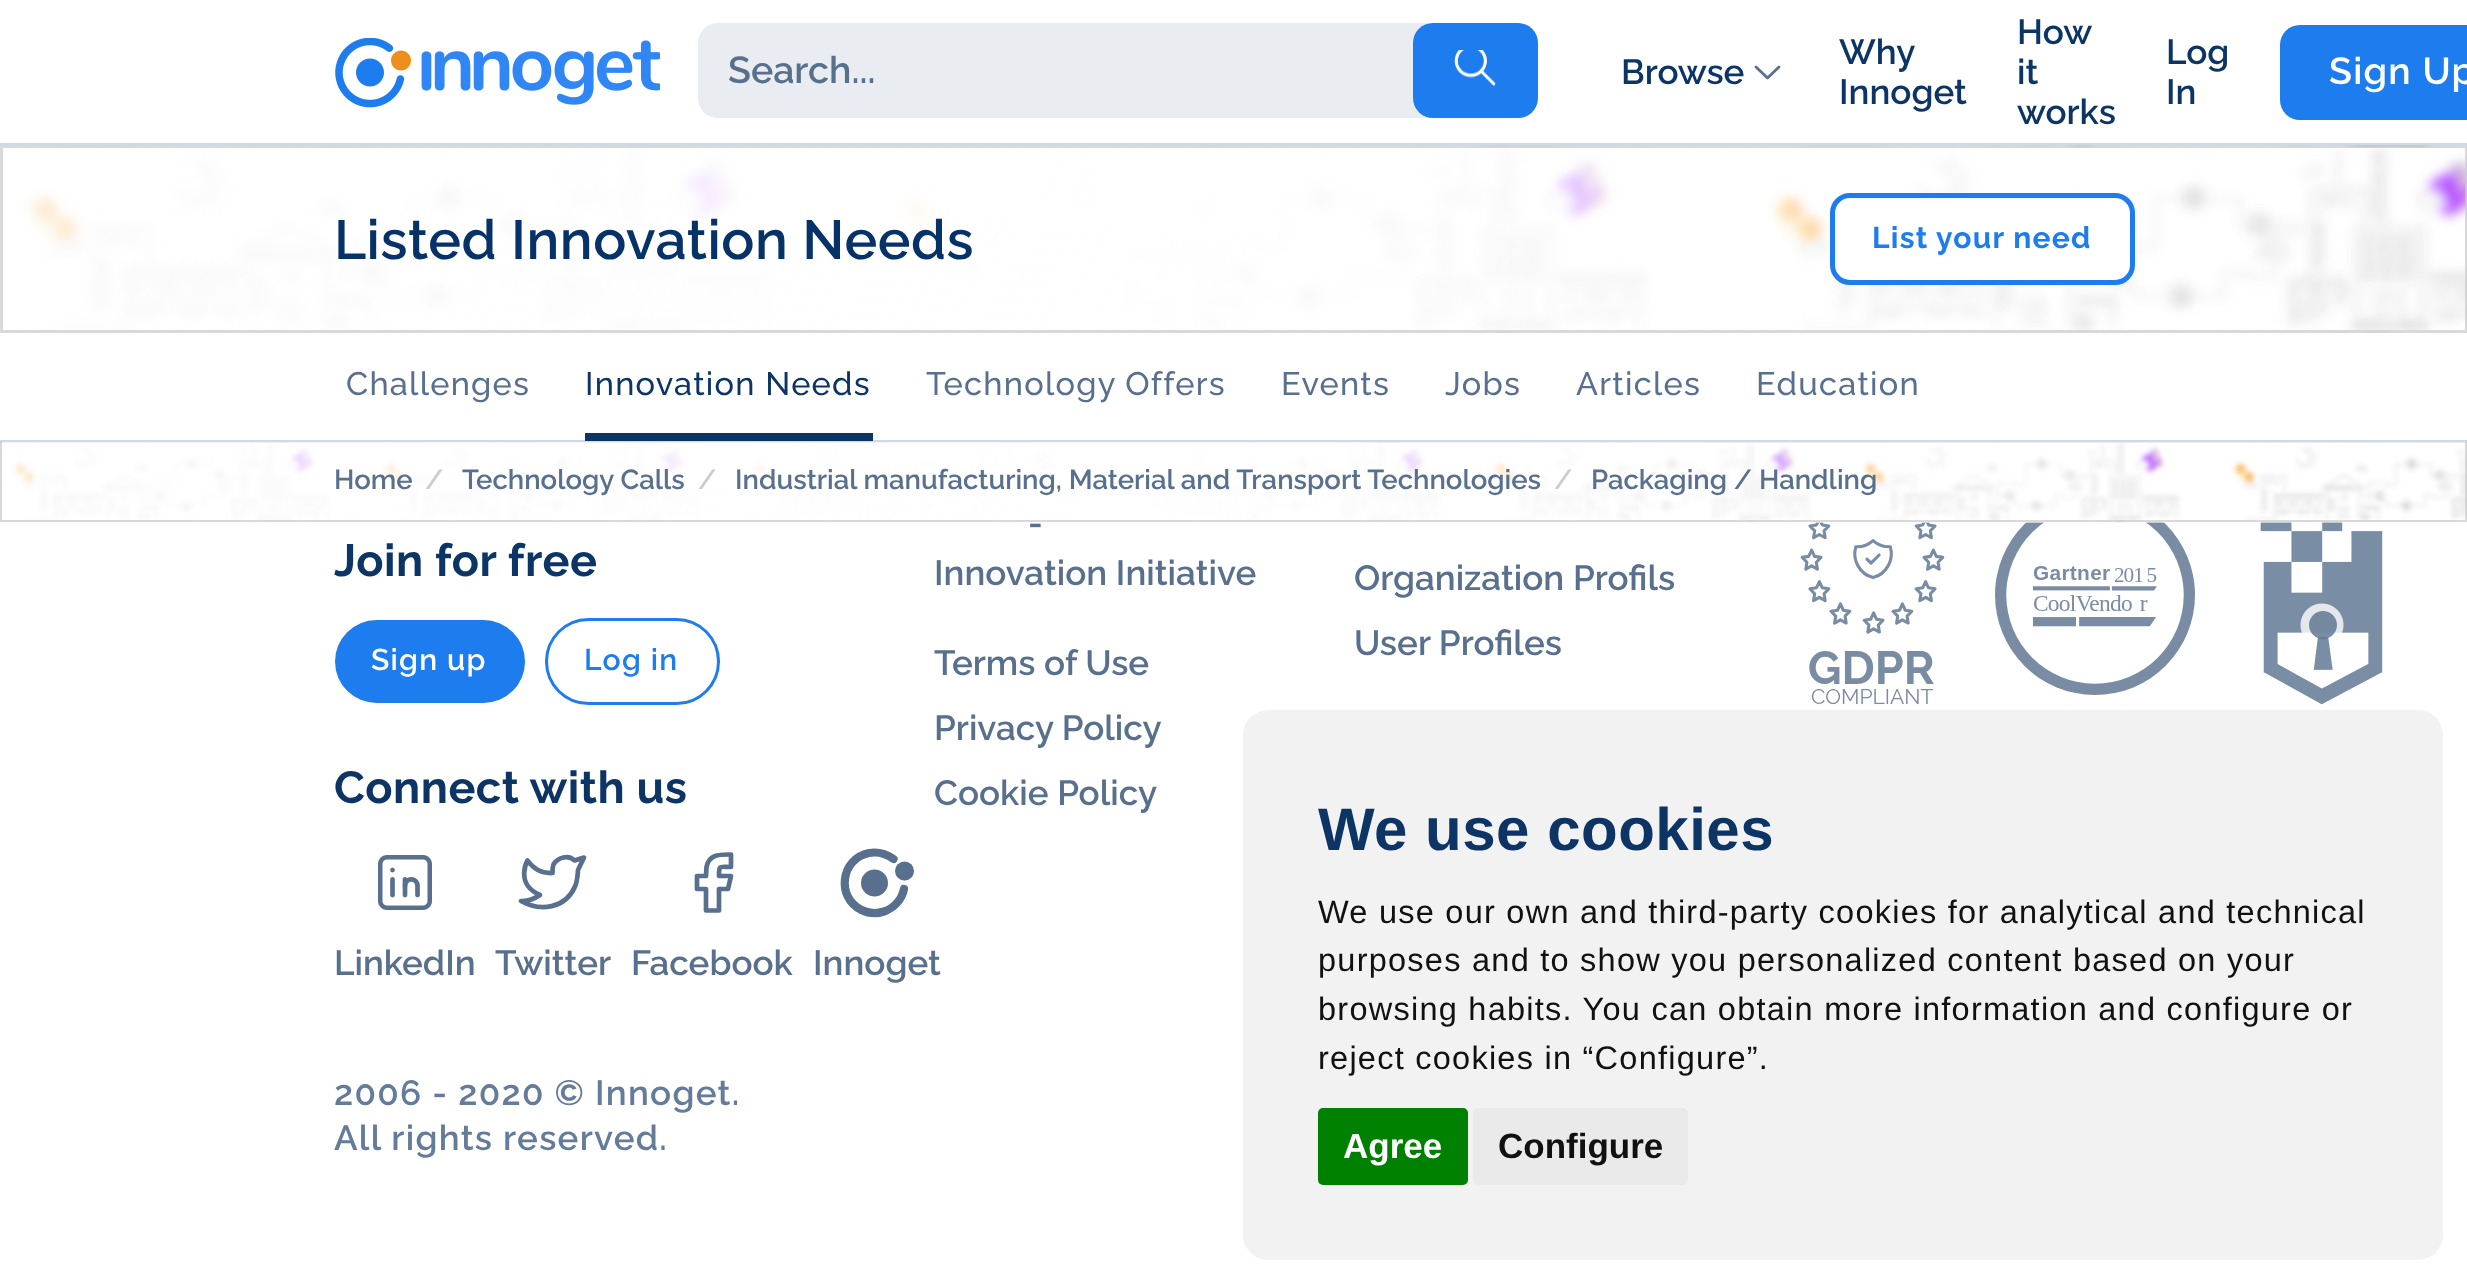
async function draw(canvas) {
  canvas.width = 2467;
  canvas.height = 1285;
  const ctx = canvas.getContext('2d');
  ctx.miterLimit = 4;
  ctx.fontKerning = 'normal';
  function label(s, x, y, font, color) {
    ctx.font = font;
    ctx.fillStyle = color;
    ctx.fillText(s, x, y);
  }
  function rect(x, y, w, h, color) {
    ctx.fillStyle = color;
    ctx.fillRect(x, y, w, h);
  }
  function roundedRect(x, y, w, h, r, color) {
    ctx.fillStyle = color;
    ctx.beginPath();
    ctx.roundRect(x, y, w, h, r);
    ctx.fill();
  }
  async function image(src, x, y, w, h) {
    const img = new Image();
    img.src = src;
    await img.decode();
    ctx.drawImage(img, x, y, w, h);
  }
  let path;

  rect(0, 0, 2467, 1285, '#fff');
  rect(0, 143, 2467, 2, '#cedbe7');
  await image('assets/img1.png', 335, 38, 325, 70);
  roundedRect(698, 23, 750, 95, 20, '#e9edf1');
  label('Search...', 728, 83, '600 37.5px Raleway', '#58708d');
  roundedRect(1413, 23, 125, 95, 20, '#1d7cee');
  await image('assets/img2.png', 1454, 50, 42, 36);
  label('Browse', 1621, 84, '600 35px Raleway', '#0c3566');
  path = new Path2D('M1756 67L1767.5 78L1779 67');
  ctx.strokeStyle = '#58708d';
  ctx.lineWidth = 2.8;
  ctx.lineCap = 'round';
  ctx.lineJoin = 'round';
  ctx.stroke(path);
  label('Why', 1839, 64, '600 35px Raleway', '#0c3566');
  label('Innoget', 1839, 104, '600 35px Raleway', '#0c3566');
  label('How', 2017, 44, '600 35px Raleway', '#0c3566');
  label('it', 2017, 84, '600 35px Raleway', '#0c3566');
  label('works', 2017, 124, '600 35px Raleway', '#0c3566');
  label('Log', 2166, 64, '600 35px Raleway', '#0c3566');
  label('In', 2166, 104, '600 35px Raleway', '#0c3566');
  roundedRect(2280, 25, 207, 95, 20, '#1d7cee');
  ctx.letterSpacing = '1.25px';
  label('Sign Up', 2329, 84, '600 37.5px Raleway', '#fff');
  await image('assets/img3.png', 0, 145, 2467, 188);
  ctx.strokeStyle = '#00000026';
  ctx.lineWidth = 3;
  ctx.lineJoin = 'miter';
  ctx.strokeRect(1.5, 146.5, 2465, 185);
  ctx.letterSpacing = '0.5px';
  label('Listed Innovation Needs', 334, 259, '600 55px Raleway', '#063268');
  ctx.fillStyle = '#fff';
  ctx.beginPath();
  ctx.roundRect(1832.5, 195.5, 300, 87, 17.5);
  ctx.fill();
  ctx.strokeStyle = '#1d7cee';
  ctx.lineWidth = 5;
  ctx.stroke();
  ctx.letterSpacing = '1.25px';
  label('List your need', 1872, 248, 'bold 30px Raleway', '#1d7cee');
  rect(0, 440, 2467, 3, '#cedbe7');
  label('Challenges', 346, 395, '500 32.5px Raleway', '#58708d');
  label('Innovation Needs', 585, 395, '500 32.5px Raleway', '#0c3566');
  rect(585, 433, 288, 8, '#0c3566');
  label('Technology Offers', 926, 395, '500 32.5px Raleway', '#58708d');
  label('Events', 1281, 395, '500 32.5px Raleway', '#58708d');
  label('Jobs', 1445, 395, '500 32.5px Raleway', '#58708d');
  label('Articles', 1576, 395, '500 32.5px Raleway', '#58708d');
  label('Education', 1756, 395, '500 32.5px Raleway', '#58708d');
  await image('assets/img6.png', 1800, 522, 145, 182);
  await image('assets/img7.png', 1995, 522, 200, 173);
  await image('assets/img8.png', 2260, 522, 123, 183);
  await image('assets/img4.png', 0, 442, 2467, 81);
  ctx.fillStyle = '#00000026';
  path = new Path2D('M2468 442V522L2465 520V442Z');
  ctx.fill(path);
  path = new Path2D('M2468 522H0L2 520H2465Z');
  ctx.fill(path);
  path = new Path2D('M0 522V442H2V520Z');
  ctx.fill(path);
  ctx.letterSpacing = '0px';
  label('Home', 334, 489, '600 27.5px Raleway', '#58708d');
  label('/', 425, 489, '600 27.5px Raleway', '#ccc');
  label('Technology Calls', 462, 489, '600 27.5px Raleway', '#58708d');
  label('/', 698, 489, '600 27.5px Raleway', '#ccc');
  label('Industrial manufacturing, Material and Transport Technologies', 735, 489, '600 27.5px Raleway', '#58708d');
  label('/', 1554, 489, '600 27.5px Raleway', '#ccc');
  label('Packaging / Handling', 1591, 489, '600 27.5px Raleway', '#58708d');
  ctx.letterSpacing = '0.5px';
  label('Join for free', 334, 576, 'bold 45px Raleway', '#0c3566');
  roundedRect(335, 620, 190, 83, 41.5, '#1d7cee');
  ctx.letterSpacing = '1.25px';
  label('Sign up', 371, 670, '600 30px Raleway', '#fff');
  ctx.beginPath();
  ctx.roundRect(546.5, 619.5, 172, 84, 42);
  ctx.lineWidth = 3;
  ctx.stroke();
  label('Log in', 584, 670, '600 30px Raleway', '#1d7cee');
  ctx.letterSpacing = '0.5px';
  label('Connect with us', 334, 803, 'bold 45px Raleway', '#0c3566');
  await image('assets/img5.png', 378, 855, 54, 55);
  ctx.letterSpacing = '0px';
  label('LinkedIn', 334, 975, '600 35px Raleway', '#58708d');
  path = new Path2D('M584 857.5L574.5 860.5C568.5 854 557.5 857.5 553.5 864.5C552.5 867 552.5 870 552.5 873C542.5 873.5 533.5 869 527.5 860.5C527.5 860.5 514.5 884 540 895C534 899 528.5 901.5 521 901C540.5 912 565.5 908.5 575 886.5C577.5 881 577.5 876 578 870Z');
  ctx.strokeStyle = '#58708d';
  ctx.lineWidth = 4.7;
  ctx.lineJoin = 'round';
  ctx.stroke(path);
  label('Twitter', 495, 975, '600 35px Raleway', '#58708d');
  path = new Path2D('M697 876V889H706V910.5H719V889H728L731 876H719C719 864.5 719.5 867 731 867V854.5C721 854.5 709 853.5 706.5 867L706 876H697');
  ctx.stroke(path);
  label('Facebook', 631, 975, '600 35px Raleway', '#58708d');
  path = new Path2D('M893.5 859C886.5 854 877.5 851.5 869 853C841 858.5 835.5 897 861.5 910C868.5 913.5 876.5 914 884 911.5C894 908 902 899.5 904 889');
  ctx.lineWidth = 8.2;
  ctx.stroke(path);
  ctx.beginPath();
  ctx.arc(874.5, 883, 13.5, 0, 2 * Math.PI);
  ctx.fill();
  ctx.beginPath();
  ctx.arc(904.5, 871, 9.5, 0, 2 * Math.PI);
  ctx.fill();
  label('Innoget', 813, 975, '600 35px Raleway', '#58708d');
  ctx.letterSpacing = '1.25px';
  label('2006 - 2020 © Innoget.', 334, 1105, '600 35px Raleway', '#657b9a');
  label('All rights reserved.', 334, 1150, '600 35px Raleway', '#657b9a');
  ctx.letterSpacing = '0px';
  label('-', 1028, 535, '600 35px Raleway', '#58708d');
  label('Innovation Initiative', 934, 585, '600 35px Raleway', '#58708d');
  label('Terms of Use', 934, 675, '600 35px Raleway', '#58708d');
  label('Privacy Policy', 934, 740, '600 35px Raleway', '#58708d');
  label('Cookie Policy', 934, 805, '600 35px Raleway', '#58708d');
  label('Organization Profils', 1354, 590, '600 35px Raleway', '#58708d');
  label('User Profiles', 1354, 655, '600 35px Raleway', '#58708d');
  roundedRect(1243, 710, 1200, 550, 25, '#f2f2f2');
  ctx.letterSpacing = '0.5px';
  label('We use cookies', 1318, 850, 'bold 60px Liberation Sans', '#0c3566');
  ctx.letterSpacing = '1.25px';
  label('We use our own and third-party cookies for analytical and technical', 1318, 923, '32.5px Liberation Sans', '#111');
  label('purposes and to show you personalized content based on your', 1318, 971, '32.5px Liberation Sans', '#111');
  label('browsing habits. You can obtain more information and configure or', 1318, 1020, '32.5px Liberation Sans', '#111');
  label('reject cookies in “Configure”.', 1318, 1069, '32.5px Liberation Sans', '#111');
  roundedRect(1318, 1108, 150, 77, 5, '#008000');
  ctx.letterSpacing = '0px';
  label('Agree', 1343, 1158, 'bold 35px Liberation Sans', '#fff');
  roundedRect(1473, 1108, 215, 77, 5, '#eaeaea');
  label('Configure', 1498, 1158, 'bold 35px Liberation Sans', '#111');
}

draw(document.querySelector('canvas'));
